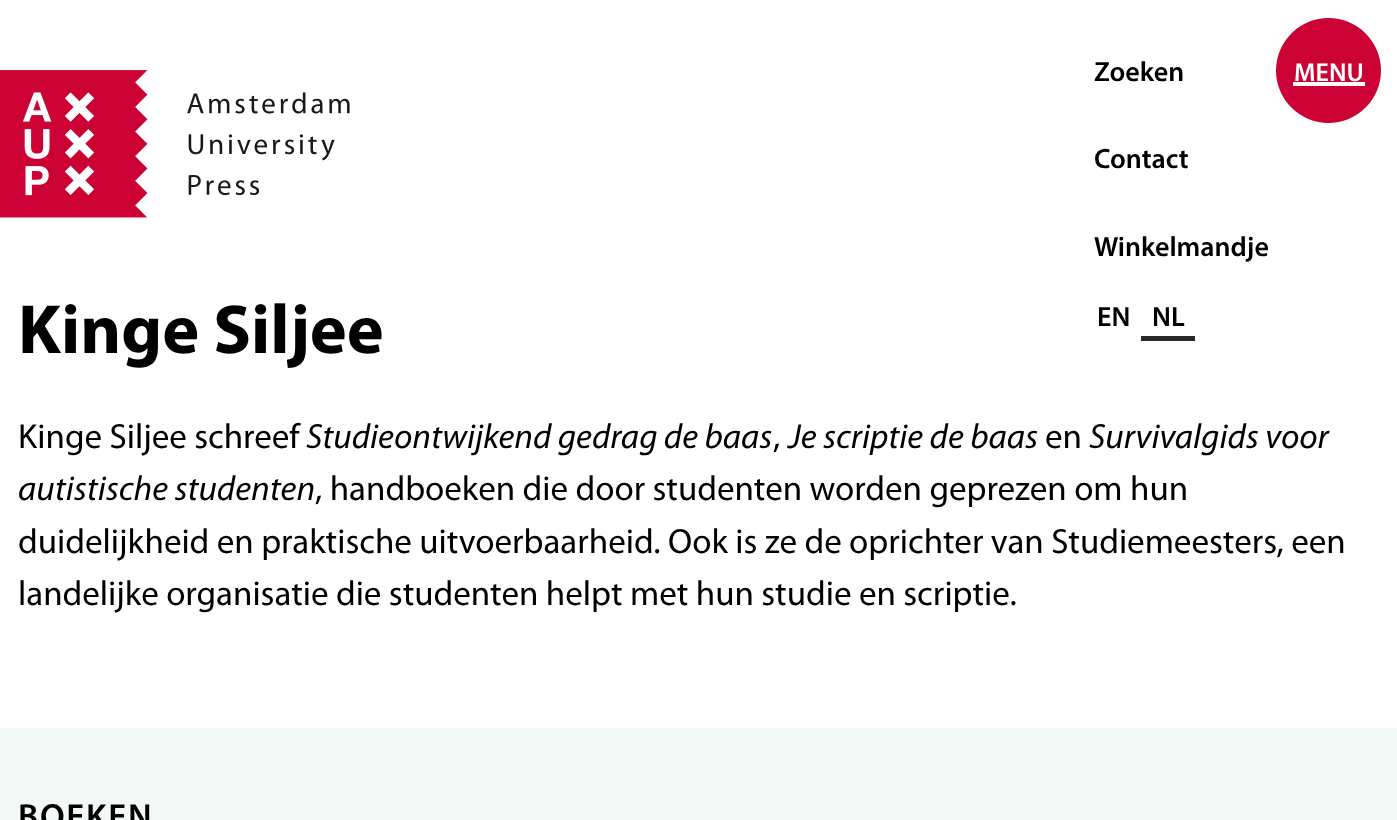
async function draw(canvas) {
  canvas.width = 1397;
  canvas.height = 820;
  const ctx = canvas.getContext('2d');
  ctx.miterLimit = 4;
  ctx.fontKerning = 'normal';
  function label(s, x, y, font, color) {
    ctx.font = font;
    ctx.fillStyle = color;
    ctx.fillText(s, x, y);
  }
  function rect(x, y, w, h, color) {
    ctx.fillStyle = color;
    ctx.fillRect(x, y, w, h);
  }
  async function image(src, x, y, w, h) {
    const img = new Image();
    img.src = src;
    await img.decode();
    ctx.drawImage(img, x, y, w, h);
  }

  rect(0, 0, 1397, 820, '#fff');
  await image('assets/img1.png', 0, 70, 350, 148);
  label('Zoeken', 1094, 81, '600 28px Myriad', '#000');
  label('Contact', 1094, 168, '600 28px Myriad', '#000');
  label('Winkelmandje', 1094, 256, '600 28px Myriad', '#000');
  label('EN', 1097, 326, '600 28px Myriad', '#000');
  label('NL', 1152, 326, '600 28px Myriad', '#000');
  rect(1141, 336, 54, 5, '#282829');
  ctx.fillStyle = '#cb0233';
  ctx.beginPath();
  ctx.arc(1328.5, 70.5, 52.5, 0, 2 * Math.PI);
  ctx.fill();
  label('MENU', 1294, 81, '600 26px Myriad', '#fff');
  rect(1293, 82, 72, 4, '#fff');
  label('Kinge Siljee', 18, 353, 'bold 70px Myriad', '#000');
  label('Kinge Siljee schreef', 18, 448, '35px Myriad', '#000');
  label('Studieontwijkend gedrag de baas', 306, 448, 'italic 35px Myriad', '#000');
  label(',', 773, 448, '35px Myriad', '#000');
  label('Je scriptie de baas', 788, 448, 'italic 35px Myriad', '#000');
  label('en', 1045, 448, '35px Myriad', '#000');
  label('Survivalgids voor', 1089, 448, 'italic 35px Myriad', '#000');
  label('autistische studenten', 18, 500, 'italic 35px Myriad', '#000');
  label(', handboeken die door studenten worden geprezen om hun', 315, 500, '35px Myriad', '#000');
  label('duidelijkheid en praktische uitvoerbaarheid. Ook is ze de oprichter van Studiemeesters, een', 18, 553, '35px Myriad', '#000');
  label('landelijke organisatie die studenten helpt met hun studie en scriptie.', 18, 605, '35px Myriad', '#000');
  rect(0, 728, 1397, 92, '#f2f8f6');
  ctx.letterSpacing = '1.75px';
  label('BOEKEN', 18, 828, '600 35px Myriad', '#000');
}

draw(document.querySelector('canvas'));
